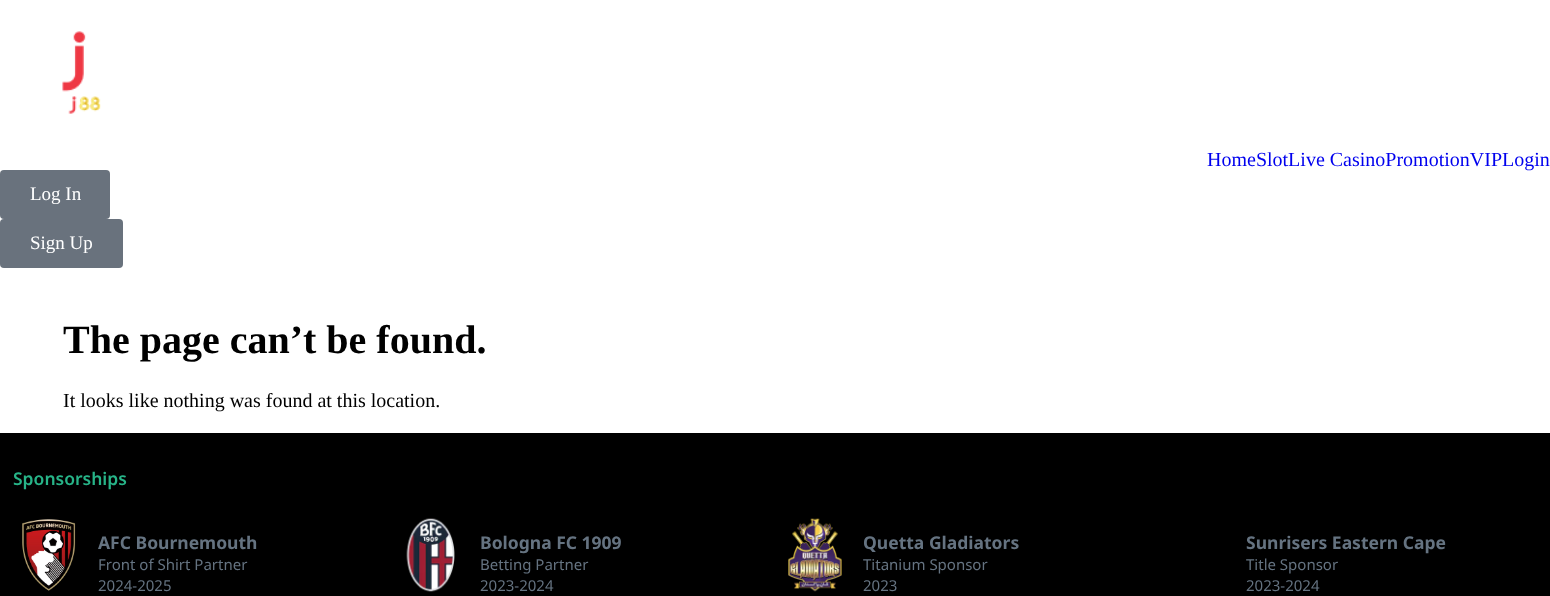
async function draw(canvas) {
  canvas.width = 1550;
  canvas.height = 596;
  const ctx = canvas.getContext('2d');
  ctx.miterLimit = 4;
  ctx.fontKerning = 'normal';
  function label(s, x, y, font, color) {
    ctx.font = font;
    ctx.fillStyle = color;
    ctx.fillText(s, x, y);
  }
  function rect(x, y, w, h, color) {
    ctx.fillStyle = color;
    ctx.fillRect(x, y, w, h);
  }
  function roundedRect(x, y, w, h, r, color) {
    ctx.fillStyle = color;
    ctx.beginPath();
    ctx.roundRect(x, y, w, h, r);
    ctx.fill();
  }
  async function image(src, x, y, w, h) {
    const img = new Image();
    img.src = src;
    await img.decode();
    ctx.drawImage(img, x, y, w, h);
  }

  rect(0, 0, 1550, 596, '#fff');
  await image('assets/img1.png', 62, 31, 39, 83);
  label('HomeSlotLive CasinoPromotionVIPLogin', 1207, 166, '20px Liberation Serif', '#00e');
  roundedRect(0, 170, 110, 49, 4, '#69727d');
  label('Log In', 30, 200, '19px Liberation Serif', '#fff');
  roundedRect(0, 219, 123, 49, 4, '#69727d');
  label('Sign Up', 30, 249, '19px Liberation Serif', '#fff');
  label('The page can’t be found.', 63, 353, 'bold 40px Liberation Serif', '#000');
  label('It looks like nothing was found at this location.', 63, 407, '20px Liberation Serif', '#000');
  rect(0, 433, 1550, 163, '#000');
  label('Sponsorships', 13, 485, '600 17.5px Noto Sans', '#27b488');
  await image('assets/img2.png', 22, 519, 54, 72);
  label('AFC Bournemouth', 98, 549, 'bold 17.5px Noto Sans', '#657381');
  label('Front of Shirt Partner', 98, 570, '15px Noto Sans', '#657381');
  label('2024-2025', 98, 591, '15px Noto Sans', '#657381');
  await image('assets/img3.png', 406, 518, 49, 74);
  label('Bologna FC 1909', 480, 549, 'bold 17.5px Noto Sans', '#657381');
  label('Betting Partner', 480, 570, '15px Noto Sans', '#657381');
  label('2023-2024', 480, 591, '15px Noto Sans', '#657381');
  await image('assets/img4.png', 788, 518, 54, 74);
  label('Quetta Gladiators', 863, 549, 'bold 17.5px Noto Sans', '#657381');
  label('Titanium Sponsor', 863, 570, '15px Noto Sans', '#657381');
  label('2023', 863, 591, '15px Noto Sans', '#657381');
  label('Sunrisers Eastern Cape', 1246, 549, 'bold 17.5px Noto Sans', '#657381');
  label('Title Sponsor', 1246, 570, '15px Noto Sans', '#657381');
  label('2023-2024', 1246, 591, '15px Noto Sans', '#657381');
}

draw(document.querySelector('canvas'));
